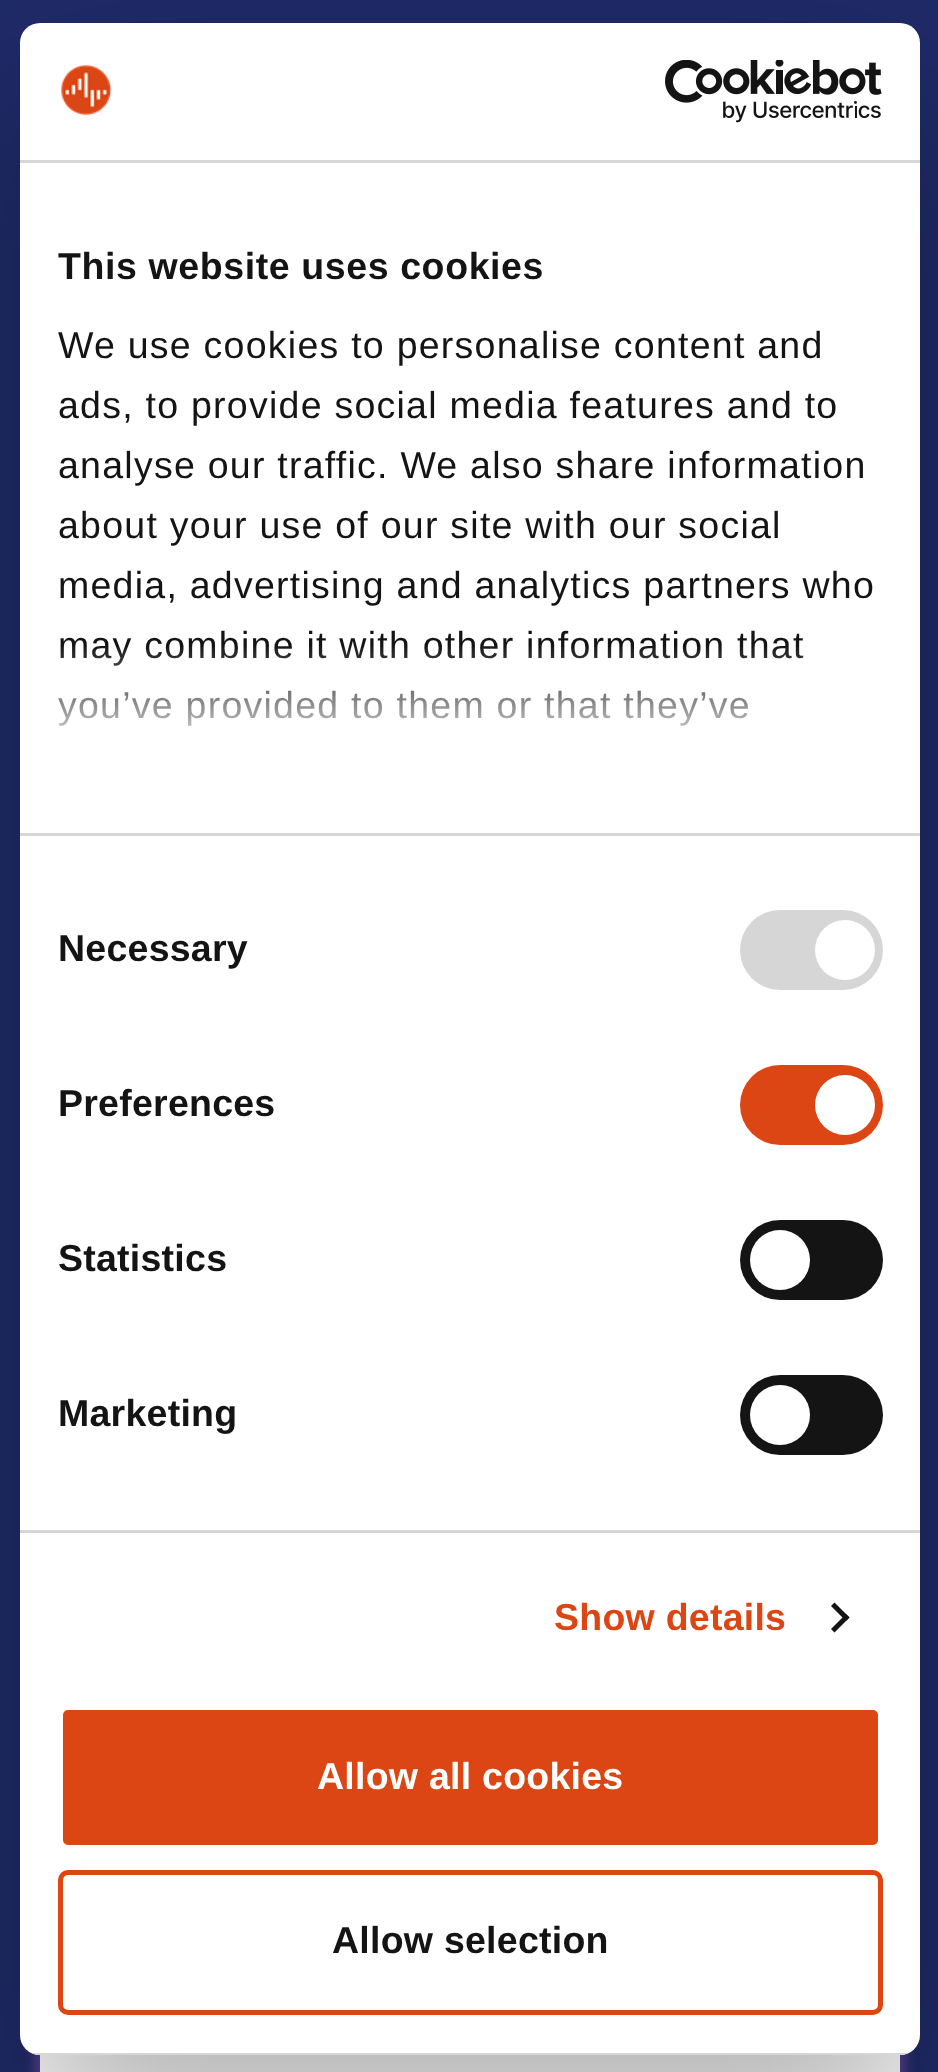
async function draw(canvas) {
  canvas.width = 938;
  canvas.height = 2072;
  const ctx = canvas.getContext('2d');
  ctx.miterLimit = 4;
  ctx.fontKerning = 'normal';
  function label(s, x, y, font, color) {
    ctx.font = font;
    ctx.fillStyle = color;
    ctx.fillText(s, x, y);
  }
  function rect(x, y, w, h, color) {
    ctx.fillStyle = color;
    ctx.fillRect(x, y, w, h);
  }
  function roundedRect(x, y, w, h, r, color) {
    ctx.fillStyle = color;
    ctx.beginPath();
    ctx.roundRect(x, y, w, h, r);
    ctx.fill();
  }
  async function image(src, x, y, w, h) {
    const img = new Image();
    img.src = src;
    await img.decode();
    ctx.drawImage(img, x, y, w, h);
  }
  let gradient, path;

  rect(0, 0, 938, 2072, '#1f2b68');
  ctx.fillStyle = '#5e4193';
  ctx.filter = 'blur(6px)';
  ctx.beginPath();
  ctx.roundRect(35, 155, 870, 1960, 25);
  ctx.fill();
  ctx.filter = 'none';
  rect(40, 2055, 860, 17, '#fff');
  ctx.save();
  path = new Path2D('M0 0H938V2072H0ZM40 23H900C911 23 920 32 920 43V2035C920 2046 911 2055 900 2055H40C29 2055 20 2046 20 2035V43C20 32 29 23 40 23Z');
  ctx.clip(path, 'evenodd');
  ctx.fillStyle = '#0000004d';
  ctx.filter = 'blur(85px)';
  ctx.beginPath();
  ctx.roundRect(20, 103, 900, 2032, 20);
  ctx.fill();
  ctx.filter = 'none';
  ctx.restore();
  roundedRect(20, 23, 900, 2032, 20, '#fff');
  rect(20, 160, 900, 3, '#d6d6d6');
  await image('assets/img1.png', 61, 64, 51, 52);
  await image('assets/img2.png', 665, 60, 217, 63);
  rect(20, 833, 900, 3, '#d6d6d6');
  ctx.letterSpacing = '0.6px';
  label('This website uses cookies', 58, 279, 'bold 37.5px Liberation Sans', '#141414');
  ctx.letterSpacing = '1.25px';
  label('We use cookies to personalise content and', 58, 358, '37.5px Liberation Sans', '#141414');
  label('ads, to provide social media features and to', 58, 418, '37.5px Liberation Sans', '#141414');
  label('analyse our traffic. We also share information', 58, 478, '37.5px Liberation Sans', '#141414');
  label('about your use of our site with our social', 58, 538, '37.5px Liberation Sans', '#141414');
  label('media, advertising and analytics partners who', 58, 598, '37.5px Liberation Sans', '#141414');
  label('may combine it with other information that', 58, 658, '37.5px Liberation Sans', '#141414');
  label('you’ve provided to them or that they’ve', 58, 718, '37.5px Liberation Sans', '#141414');
  gradient = ctx.createLinearGradient(454, 831, 454, 644);
  gradient.addColorStop(0, '#fff');
  gradient.addColorStop(0.5, '#ffffffcc');
  gradient.addColorStop(1, '#ffffff00');
  ctx.fillStyle = gradient;
  ctx.fillRect(57, 647, 746, 79);
  rect(20, 1530, 900, 3, '#d6d6d6');
  ctx.letterSpacing = '0.25px';
  label('Necessary', 58, 961, 'bold 37.5px Liberation Sans', '#141414');
  roundedRect(740, 910, 143, 80, 40, '#d6d6d6');
  ctx.fillStyle = '#fff';
  ctx.beginPath();
  ctx.arc(845, 950, 30, 0, 2 * Math.PI);
  ctx.fill();
  label('Preferences', 58, 1116, 'bold 37.5px Liberation Sans', '#141414');
  roundedRect(740, 1065, 143, 80, 40, '#db4614');
  ctx.fillStyle = '#fff';
  ctx.beginPath();
  ctx.arc(845, 1105, 30, 0, 2 * Math.PI);
  ctx.fill();
  label('Statistics', 58, 1271, 'bold 37.5px Liberation Sans', '#141414');
  roundedRect(740, 1220, 143, 80, 40, '#141414');
  ctx.fillStyle = '#fff';
  ctx.beginPath();
  ctx.arc(780, 1260, 30, 0, 2 * Math.PI);
  ctx.fill();
  label('Marketing', 58, 1426, 'bold 37.5px Liberation Sans', '#141414');
  roundedRect(740, 1375, 143, 80, 40, '#141414');
  ctx.fillStyle = '#fff';
  ctx.beginPath();
  ctx.arc(780, 1415, 30, 0, 2 * Math.PI);
  ctx.fill();
  label('Show details', 554, 1630, 'bold 37.5px Liberation Sans', '#db4614');
  ctx.fillStyle = '#141414';
  path = new Path2D('M834.5 1602.5L849.5 1617.5L846 1621L831 1606Z');
  ctx.fill(path);
  path = new Path2D('M846 1614L849.5 1617.5L834.5 1632.5L831 1629Z');
  ctx.fill(path);
  ctx.save();
  ctx.beginPath();
  ctx.roundRect(20, 23, 900, 2032, 20);
  ctx.clip();
  rect(31, 2053, 878, 2, '#d6d6d6');
  ctx.restore();
  ctx.fillStyle = '#db4614';
  ctx.beginPath();
  ctx.roundRect(60.5, 1707.5, 820, 140, 7.5);
  ctx.fill();
  ctx.strokeStyle = '#fff';
  ctx.lineWidth = 5;
  ctx.stroke();
  label('Allow all cookies', 317, 1789, 'bold 37.5px Liberation Sans', '#fff');
  ctx.beginPath();
  ctx.roundRect(60.5, 1872.5, 820, 140, 7.5);
  ctx.strokeStyle = '#db4614';
  ctx.stroke();
  label('Allow selection', 332, 1953, 'bold 37.5px Liberation Sans', '#141414');
}

draw(document.querySelector('canvas'));
